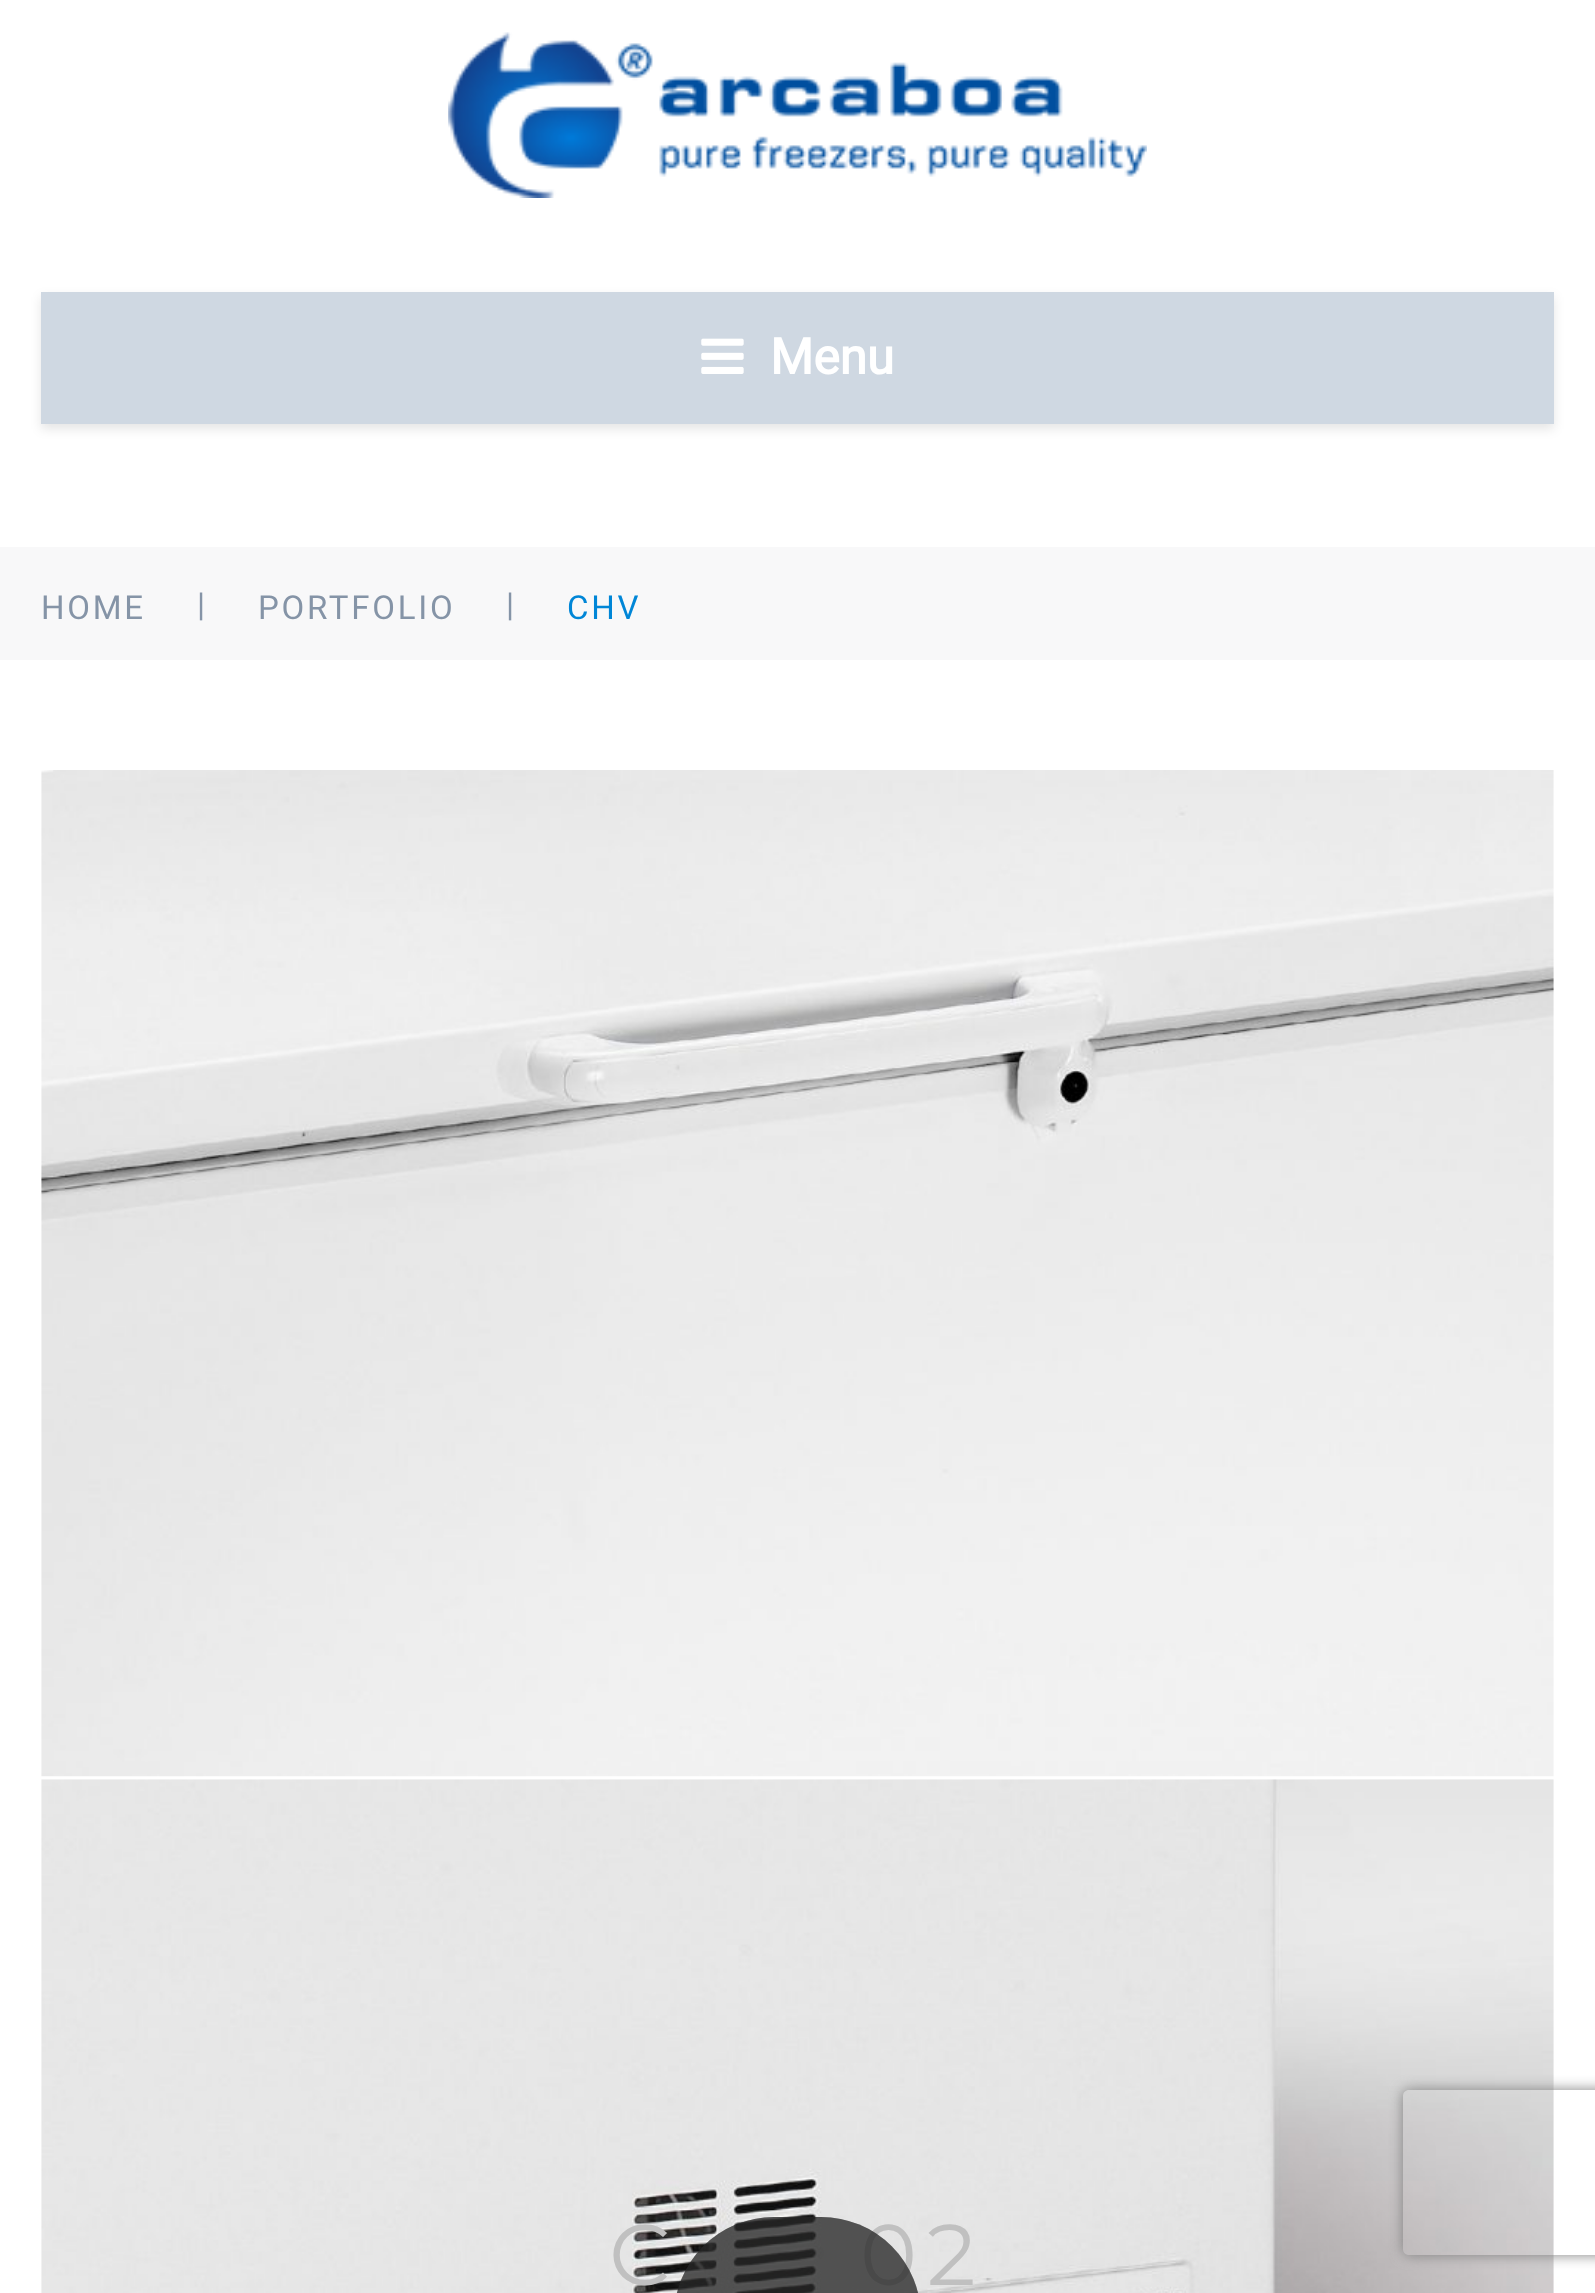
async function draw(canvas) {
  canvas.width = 1595;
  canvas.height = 2293;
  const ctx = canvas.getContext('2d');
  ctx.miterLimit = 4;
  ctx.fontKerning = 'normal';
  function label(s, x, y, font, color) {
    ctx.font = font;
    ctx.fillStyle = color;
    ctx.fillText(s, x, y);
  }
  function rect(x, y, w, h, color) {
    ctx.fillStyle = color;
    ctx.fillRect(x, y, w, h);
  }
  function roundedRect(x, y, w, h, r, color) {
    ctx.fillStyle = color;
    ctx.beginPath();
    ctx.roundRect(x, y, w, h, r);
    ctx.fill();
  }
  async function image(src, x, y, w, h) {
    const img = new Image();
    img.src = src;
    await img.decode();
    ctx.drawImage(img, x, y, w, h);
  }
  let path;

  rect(0, 0, 1595, 2293, '#fff');
  await image('assets/img1.png', 448, 32, 699, 166);
  ctx.fillStyle = '#0000001a';
  ctx.filter = 'blur(5.5px)';
  ctx.beginPath();
  ctx.rect(41, 297, 1513, 132);
  ctx.fill();
  ctx.filter = 'none';
  rect(41, 292, 1513, 132, '#cfd8e2');
  await image('assets/img2.png', 701, 338, 43, 36);
  label('Menu', 770, 374, 'bold 49.5px Roboto', '#fff');
  rect(0, 547, 1595, 113, '#f8f8f9');
  ctx.letterSpacing = '2.75px';
  label('HOME', 41, 619, '33px Roboto', '#8594a7');
  label('|', 197, 616, '33px Roboto', '#8594a7');
  label('PORTFOLIO', 258, 619, '33px Roboto', '#8594a7');
  label('|', 506, 616, '33px Roboto', '#8594a7');
  label('CHV', 567, 619, '33px Roboto', '#0086d7');
  await image('assets/img4.png', 41, 1779, 1513, 514);
  ctx.letterSpacing = '10px';
  label('02', 860, 2285, '86px Montserrat', '#c0c0c0');
  roundedRect(674, 2217, 247, 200, 123.5, '#28282887');
  roundedRect(674, 2217, 247, 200, 123.5, '#28282887');
  await image('assets/img3.png', 41, 770, 1513, 1007);
  label('C', 609, 2285, '86px Montserrat', '#c0c0c0');
  ctx.save();
  path = new Path2D('M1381 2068H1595V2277H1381ZM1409 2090H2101C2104.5 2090 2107 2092.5 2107 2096V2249C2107 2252.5 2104.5 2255 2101 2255H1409C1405.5 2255 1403 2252.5 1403 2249V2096C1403 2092.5 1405.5 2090 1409 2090Z');
  ctx.clip(path, 'evenodd');
  ctx.fillStyle = '#808080';
  ctx.filter = 'blur(7px)';
  ctx.beginPath();
  ctx.roundRect(1403, 2090, 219, 165, 6);
  ctx.fill();
  ctx.filter = 'none';
  ctx.restore();
}

draw(document.querySelector('canvas'));
